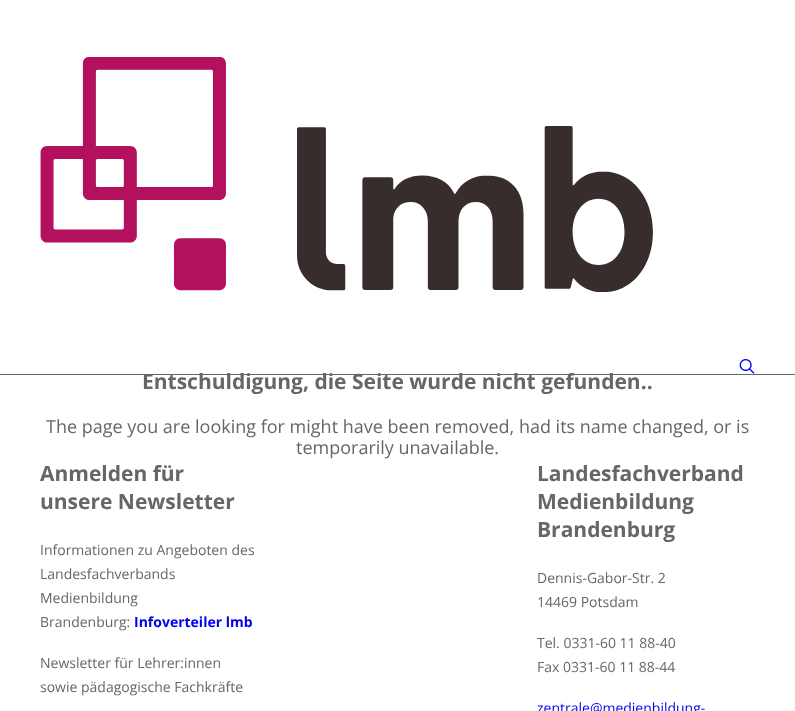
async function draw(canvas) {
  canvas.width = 795;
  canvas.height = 711;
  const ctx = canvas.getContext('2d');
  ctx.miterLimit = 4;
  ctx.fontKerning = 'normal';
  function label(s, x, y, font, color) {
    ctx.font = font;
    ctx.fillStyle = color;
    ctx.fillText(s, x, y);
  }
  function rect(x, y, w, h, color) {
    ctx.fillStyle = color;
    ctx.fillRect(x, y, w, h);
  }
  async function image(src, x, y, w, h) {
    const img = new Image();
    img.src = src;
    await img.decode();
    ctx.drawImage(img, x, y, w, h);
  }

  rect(0, 0, 795, 711, '#fff');
  rect(0, 374, 795, 1, '#666');
  await image('assets/img1.png', 40, 57, 613, 235);
  await image('assets/img2.png', 739, 359, 16, 15);
  label('Entschuldigung, die Seite wurde nicht gefunden..', 142, 389, 'bold 21px Open Sans', '#666');
  label('The page you are looking for might have been removed, had its name changed, or is', 46, 433, '18px Open Sans', '#666');
  label('temporarily unavailable.', 296, 454, '18px Open Sans', '#666');
  label('Anmelden für', 40, 481, 'bold 21px Open Sans', '#666');
  label('unsere Newsletter', 40, 509, 'bold 21px Open Sans', '#666');
  label('Informationen zu Angeboten des', 40, 555, '14px Open Sans', '#666');
  label('Landesfachverbands', 40, 579, '14px Open Sans', '#666');
  label('Medienbildung', 40, 603, '14px Open Sans', '#666');
  label('Brandenburg:', 40, 627, '14px Open Sans', '#666');
  label('Infoverteiler lmb', 134, 627, 'bold 14px Open Sans', '#00e');
  label('Newsletter für Lehrer:innen', 40, 668, '14px Open Sans', '#666');
  label('sowie pädagogische Fachkräfte', 40, 692, '14px Open Sans', '#666');
  label('Landesfachverband', 537, 481, 'bold 21px Open Sans', '#666');
  label('Medienbildung', 537, 509, 'bold 21px Open Sans', '#666');
  label('Brandenburg', 537, 537, 'bold 21px Open Sans', '#666');
  label('Dennis-Gabor-Str. 2', 537, 583, '14px Open Sans', '#666');
  label('14469 Potsdam', 537, 607, '14px Open Sans', '#666');
  label('Tel. 0331-60 11 88-40', 537, 648, '14px Open Sans', '#666');
  label('Fax 0331-60 11 88-44', 537, 672, '14px Open Sans', '#666');
  label('zentrale@medienbildung-', 537, 713, '14px Open Sans', '#00e');
}

draw(document.querySelector('canvas'));
